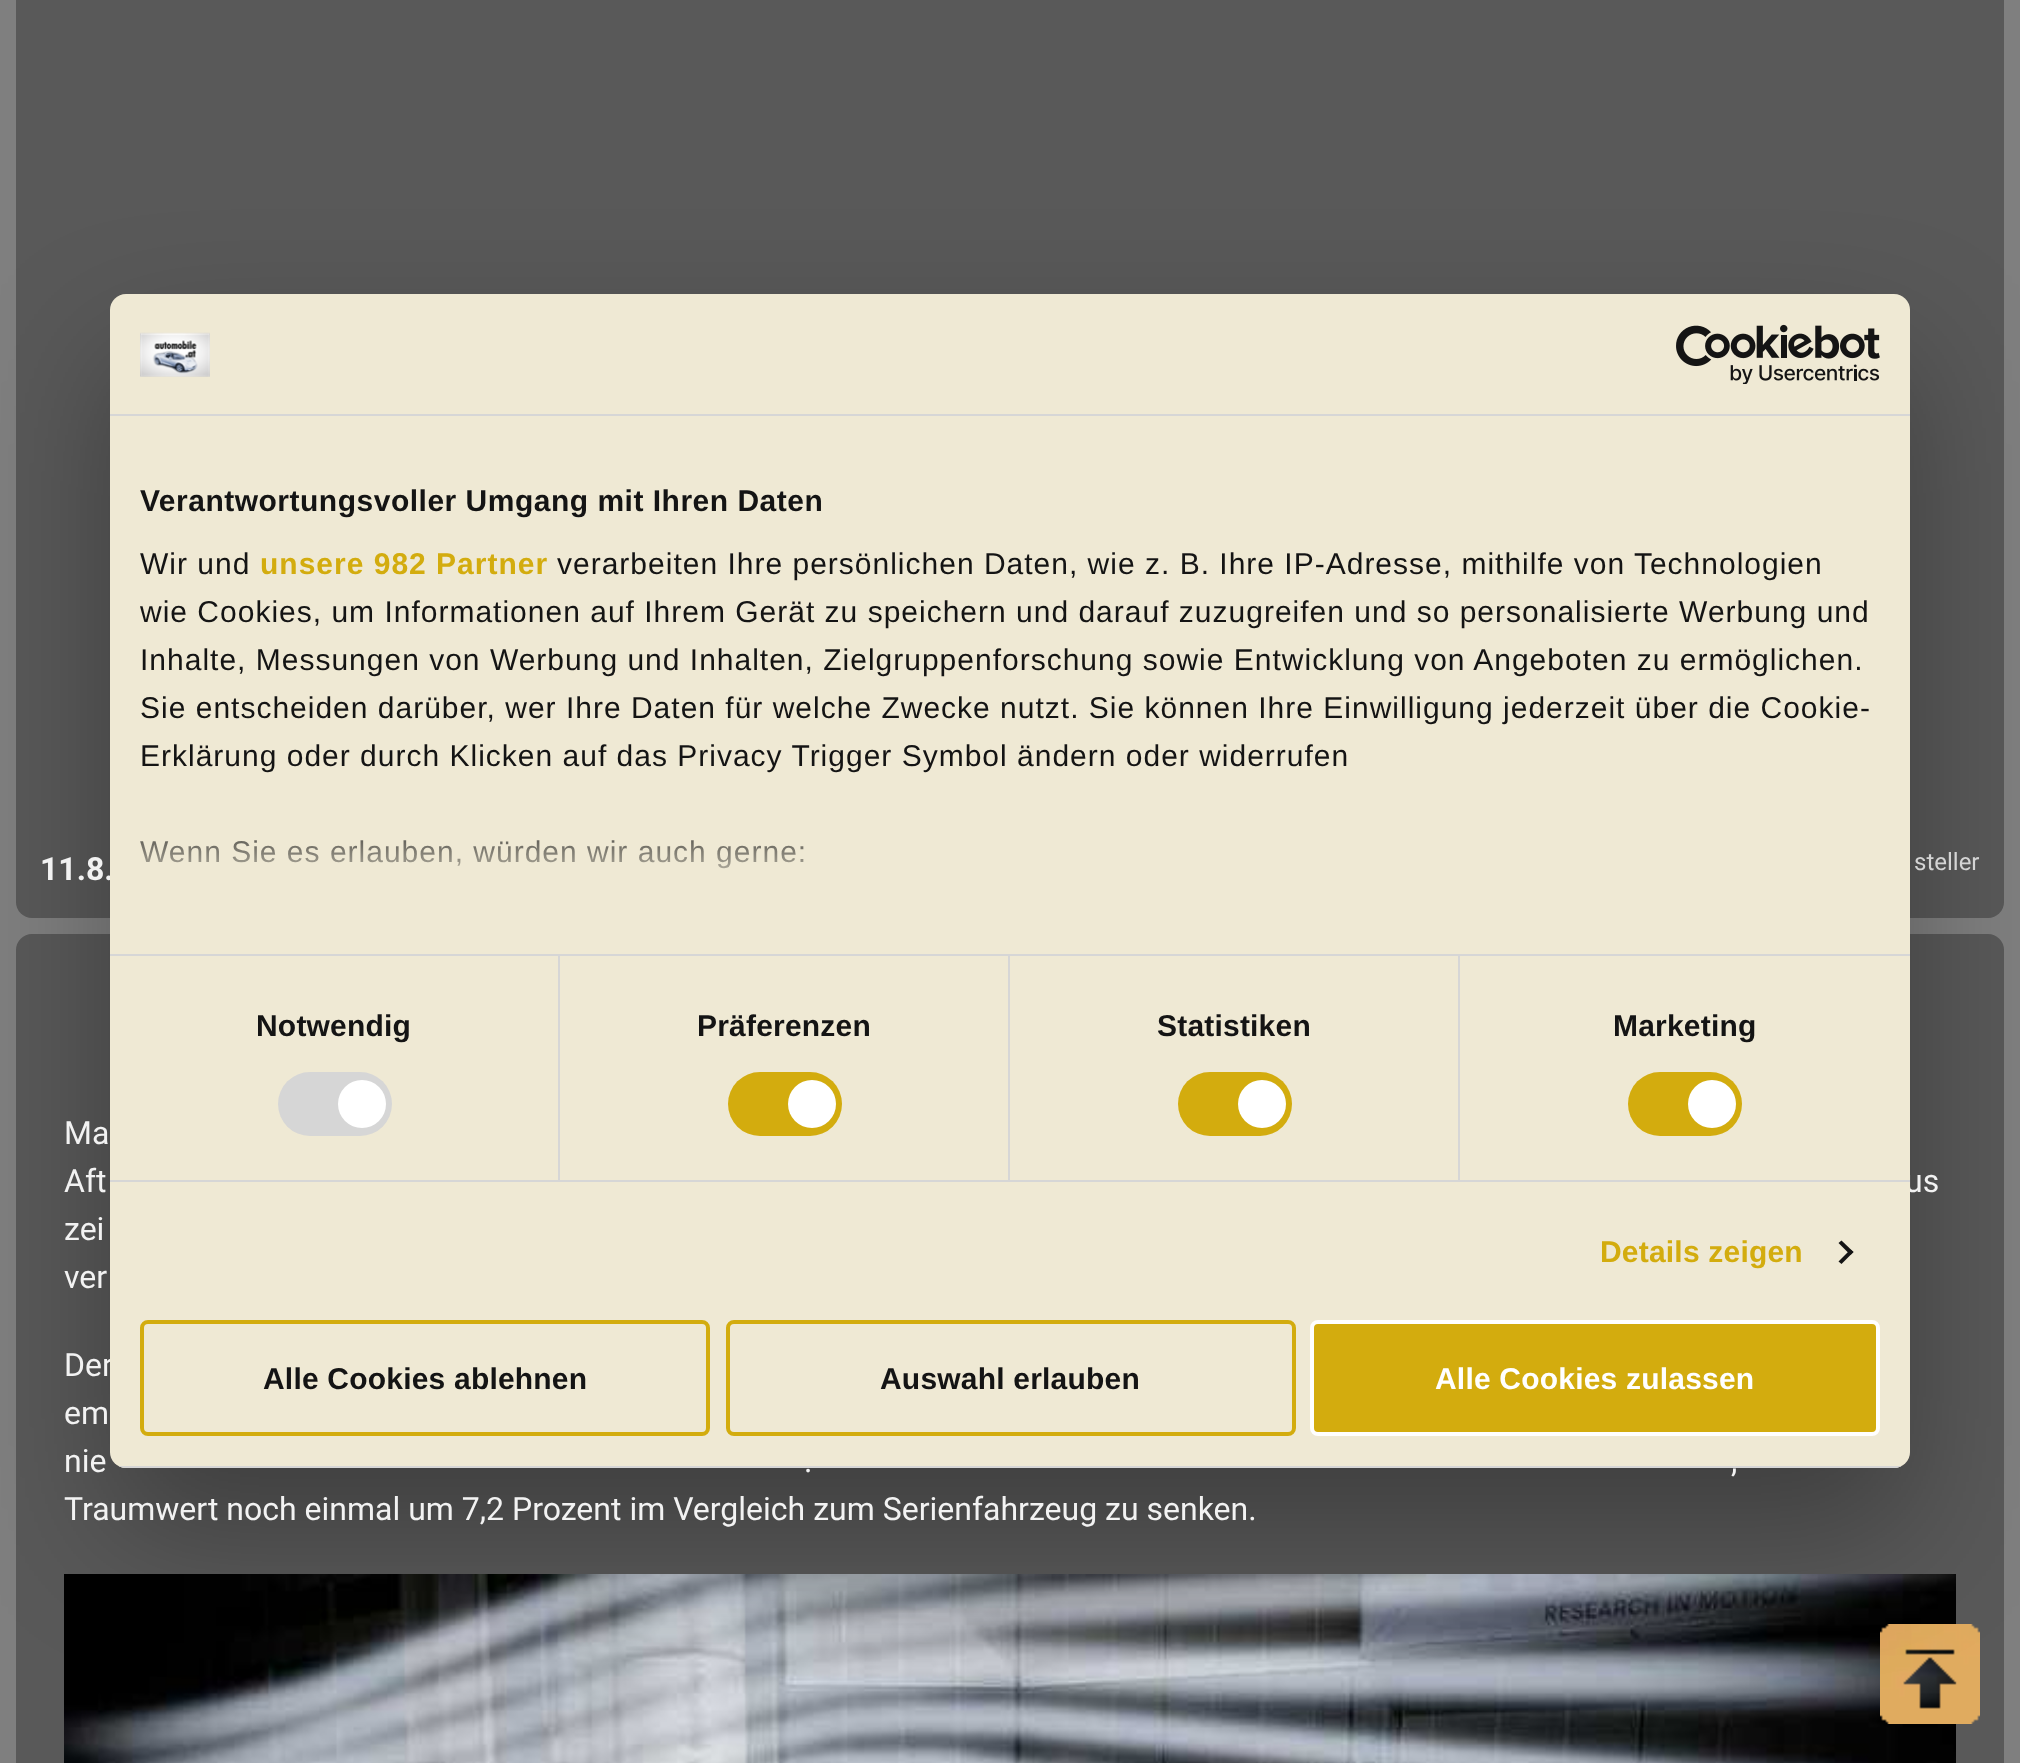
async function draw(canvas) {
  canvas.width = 2020;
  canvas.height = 1763;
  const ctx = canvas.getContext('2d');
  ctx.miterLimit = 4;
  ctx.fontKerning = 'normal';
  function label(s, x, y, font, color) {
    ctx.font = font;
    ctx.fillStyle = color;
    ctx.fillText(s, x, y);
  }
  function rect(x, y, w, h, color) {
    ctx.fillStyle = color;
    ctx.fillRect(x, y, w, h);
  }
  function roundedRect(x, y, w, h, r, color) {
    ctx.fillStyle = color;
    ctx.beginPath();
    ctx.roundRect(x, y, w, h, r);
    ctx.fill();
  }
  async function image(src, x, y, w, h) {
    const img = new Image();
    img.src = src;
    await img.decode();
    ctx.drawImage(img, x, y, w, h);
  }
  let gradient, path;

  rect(0, 0, 2020, 1763, '#7f7f7f');
  roundedRect(16, -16, 1988, 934, 16, '#595959');
  roundedRect(16, 934, 1988, 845, 16, '#595959');
  await image('assets/img3.png', 64, 1574, 1892, 189);
  await image('assets/img4.png', 1880, 1624, 100, 100);
  ctx.fillStyle = '#0000004d';
  ctx.filter = 'blur(68px)';
  ctx.beginPath();
  ctx.roundRect(110, 358, 1800, 1174, 16);
  ctx.fill();
  ctx.filter = 'none';
  label('11.8.', 40, 880, 'bold 32px Roboto', '#f2f2f2');
  label('us', 1905, 1192, '32px Roboto', '#f2f2f2');
  label('Der', 64, 1376, '32px Roboto', '#f2f2f2');
  roundedRect(110, 294, 1800, 1174, 16, '#efe9d4');
  rect(110, 414, 1800, 2, '#d6d6d6');
  await image('assets/img1.png', 140, 332, 70, 45);
  await image('assets/img2.png', 1676, 324, 204, 60);
  rect(110, 954, 1800, 2, '#d6d6d6');
  ctx.letterSpacing = '0.5px';
  label('Verantwortungsvoller Umgang mit Ihren Daten', 140, 511, 'bold 30px Liberation Sans', '#141414');
  ctx.letterSpacing = '1px';
  label('Wir und', 140, 574, '30px Liberation Sans', '#141414');
  label('unsere 982 Partner', 260, 574, 'bold 30px Liberation Sans', '#d3ac0e');
  label('verarbeiten Ihre persönlichen Daten, wie z. B. Ihre IP-Adresse, mithilfe von Technologien', 557, 574, '30px Liberation Sans', '#141414');
  label('wie Cookies, um Informationen auf Ihrem Gerät zu speichern und darauf zuzugreifen und so personalisierte Werbung und', 140, 622, '30px Liberation Sans', '#141414');
  label('Inhalte, Messungen von Werbung und Inhalten, Zielgruppenforschung sowie Entwicklung von Angeboten zu ermöglichen.', 140, 670, '30px Liberation Sans', '#141414');
  label('Sie entscheiden darüber, wer Ihre Daten für welche Zwecke nutzt. Sie können Ihre Einwilligung jederzeit über die Cookie-', 140, 718, '30px Liberation Sans', '#141414');
  label('Erklärung oder durch Klicken auf das Privacy Trigger Symbol ändern oder widerrufen', 140, 766, '30px Liberation Sans', '#141414');
  label('Wenn Sie es erlauben, würden wir auch gerne:', 140, 862, '30px Liberation Sans', '#141414');
  gradient = ctx.createLinearGradient(997, 955, 997, 805);
  gradient.addColorStop(0, '#efe9d4');
  gradient.addColorStop(0.5, '#efe9d4cc');
  gradient.addColorStop(1, '#efe9d400');
  ctx.fillStyle = gradient;
  ctx.fillRect(140, 840, 664, 29);
  rect(110, 1180, 1800, 2, '#d6d6d6');
  rect(558, 956, 2, 224, '#d6d6d6');
  ctx.letterSpacing = '0.2px';
  label('Notwendig', 256, 1036, 'bold 30px Liberation Sans', '#141414');
  roundedRect(278, 1072, 114, 64, 32, '#d6d6d6');
  ctx.fillStyle = '#fff';
  ctx.beginPath();
  ctx.arc(362, 1104, 24, 0, 2 * Math.PI);
  ctx.fill();
  rect(1008, 956, 2, 224, '#d6d6d6');
  label('Präferenzen', 697, 1036, 'bold 30px Liberation Sans', '#141414');
  roundedRect(728, 1072, 114, 64, 32, '#d3ac0e');
  ctx.fillStyle = '#fff';
  ctx.beginPath();
  ctx.arc(812, 1104, 24, 0, 2 * Math.PI);
  ctx.fill();
  rect(1458, 956, 2, 224, '#d6d6d6');
  label('Statistiken', 1157, 1036, 'bold 30px Liberation Sans', '#141414');
  roundedRect(1178, 1072, 114, 64, 32, '#d3ac0e');
  ctx.fillStyle = '#fff';
  ctx.beginPath();
  ctx.arc(1262, 1104, 24, 0, 2 * Math.PI);
  ctx.fill();
  label('Marketing', 1613, 1036, 'bold 30px Liberation Sans', '#141414');
  roundedRect(1628, 1072, 114, 64, 32, '#d3ac0e');
  ctx.fillStyle = '#fff';
  ctx.beginPath();
  ctx.arc(1712, 1104, 24, 0, 2 * Math.PI);
  ctx.fill();
  label('Details zeigen', 1600, 1262, 'bold 30px Liberation Sans', '#d3ac0e');
  ctx.fillStyle = '#141414';
  path = new Path2D('M1841.5 1240.5L1853.5 1252L1850.5 1255L1838.5 1243Z');
  ctx.fill(path);
  path = new Path2D('M1850.5 1249.5L1853.5 1252L1841.5 1264L1838.5 1261.5Z');
  ctx.fill(path);
  ctx.save();
  ctx.beginPath();
  ctx.roundRect(110, 294, 1800, 1174, 16);
  ctx.clip();
  rect(110, 1466, 1800, 2, '#d6d6d6');
  ctx.restore();
  ctx.beginPath();
  ctx.roundRect(142, 1322, 566, 112, 6);
  ctx.strokeStyle = '#d3ac0e';
  ctx.lineWidth = 4;
  ctx.stroke();
  label('Alle Cookies ablehnen', 263, 1389, 'bold 30px Liberation Sans', '#141414');
  ctx.beginPath();
  ctx.roundRect(728, 1322, 566, 112, 6);
  ctx.stroke();
  label('Auswahl erlauben', 880, 1389, 'bold 30px Liberation Sans', '#141414');
  ctx.fillStyle = '#d3ac0e';
  ctx.beginPath();
  ctx.roundRect(1312, 1322, 566, 112, 6);
  ctx.fill();
  ctx.strokeStyle = '#fff';
  ctx.stroke();
  label('Alle Cookies zulassen', 1435, 1389, 'bold 30px Liberation Sans', '#fff');
  ctx.letterSpacing = '0px';
  label('steller', 1914, 870, '24px Roboto', '#d4d4d4');
  label('Ma', 64, 1144, '32px Roboto', '#f2f2f2');
  label('Aft', 64, 1192, '32px Roboto', '#f2f2f2');
  label('zei', 64, 1240, '32px Roboto', '#f2f2f2');
  label('ver', 64, 1288, '32px Roboto', '#f2f2f2');
  label('em', 64, 1424, '32px Roboto', '#f2f2f2');
  label('nie', 64, 1472, '32px Roboto', '#f2f2f2');
  label('.', 804, 1472, '32px Roboto', '#f2f2f2');
  label(',', 1731, 1472, '32px Roboto', '#f2f2f2');
  label('Traumwert noch einmal um 7,2 Prozent im Vergleich zum Serienfahrzeug zu senken.', 64, 1520, '32px Roboto', '#f2f2f2');
}

draw(document.querySelector('canvas'));
